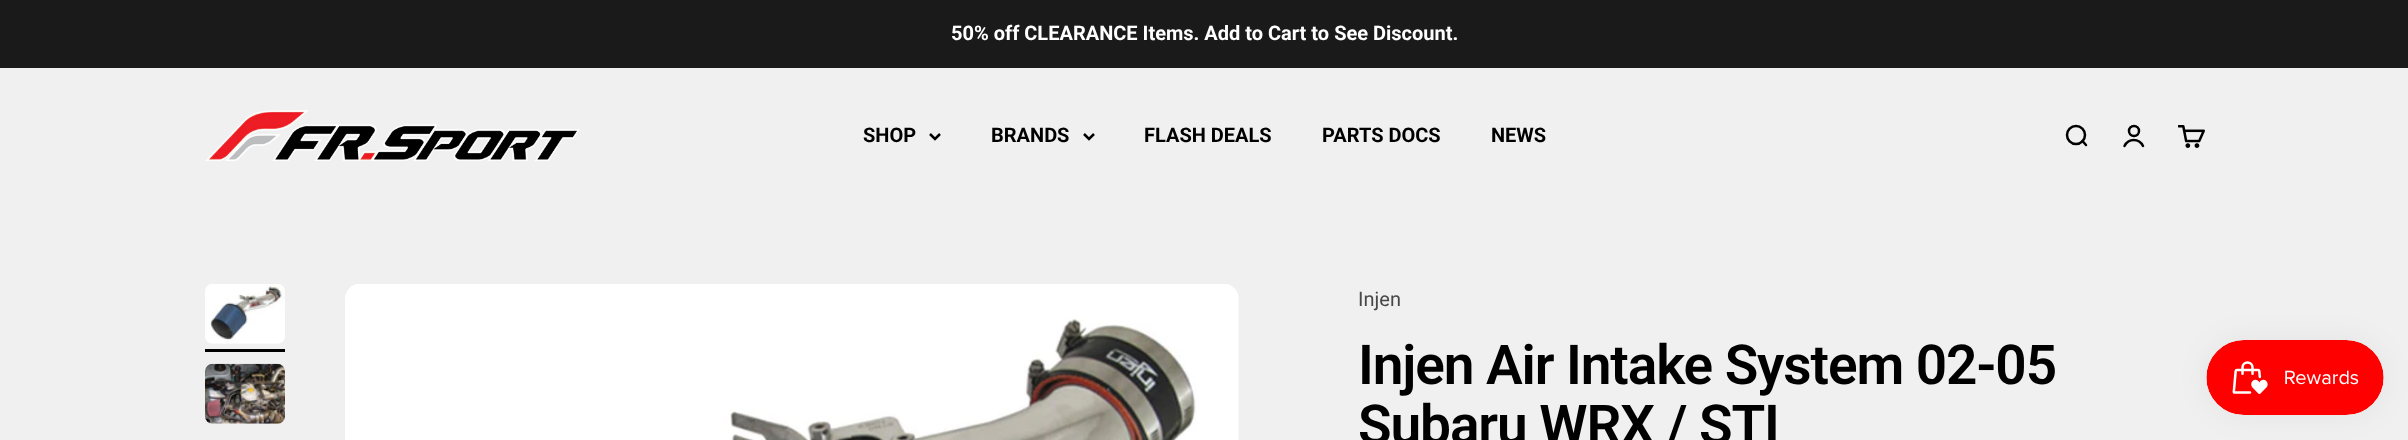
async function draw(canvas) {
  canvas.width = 2408;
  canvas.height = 440;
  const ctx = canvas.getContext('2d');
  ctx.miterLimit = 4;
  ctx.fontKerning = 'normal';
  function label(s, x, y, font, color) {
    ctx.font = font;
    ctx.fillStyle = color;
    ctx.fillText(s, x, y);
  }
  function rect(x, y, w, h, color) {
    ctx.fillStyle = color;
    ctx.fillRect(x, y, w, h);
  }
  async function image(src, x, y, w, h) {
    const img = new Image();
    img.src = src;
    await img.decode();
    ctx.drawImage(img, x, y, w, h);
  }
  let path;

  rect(0, 0, 2408, 440, '#f0f0f0');
  rect(0, 0, 2408, 68, '#1a1a1a');
  label('50% off CLEARANCE Items. Add to Cart to See Discount.', 951, 40, 'bold 20px Roboto', '#fff');
  await image('assets/img1.png', 205, 110, 375, 51);
  label('SHOP', 863, 142, 'bold 20px Roboto', '#000');
  path = new Path2D('M930 134L935 139L940 134');
  ctx.strokeStyle = '#000';
  ctx.lineWidth = 2.5;
  ctx.stroke(path);
  label('BRANDS', 991, 142, 'bold 20px Roboto', '#000');
  path = new Path2D('M1084 134L1089 139L1094 134');
  ctx.stroke(path);
  label('FLASH DEALS', 1144, 142, 'bold 20px Roboto', '#000');
  label('PARTS DOCS', 1322, 142, 'bold 20px Roboto', '#000');
  label('NEWS', 1491, 142, 'bold 20px Roboto', '#000');
  ctx.beginPath();
  ctx.arc(2076, 135, 9, 0, 2 * Math.PI);
  ctx.stroke();
  path = new Path2D('M2082.5 141L2086 145');
  ctx.lineCap = 'round';
  ctx.lineJoin = 'round';
  ctx.stroke(path);
  ctx.beginPath();
  ctx.arc(2134, 131, 5, 0, 2 * Math.PI);
  ctx.stroke();
  path = new Path2D('M2124.5 146C2128.5 138 2139 138 2143 146');
  ctx.lineJoin = 'miter';
  ctx.stroke(path);
  await image('assets/img2.png', 2178, 125, 27, 23);
  await image('assets/img3.png', 205, 284, 80, 60);
  rect(205, 349, 80, 3, '#000');
  await image('assets/img4.png', 205, 363, 80, 61);
  await image('assets/img5.png', 345, 284, 894, 156);
  label('Injen', 1358, 306, '20px Roboto', '#484848');
  ctx.letterSpacing = '-1.1px';
  label('Injen Air Intake System 02-05', 1358, 384, '600 55px Roboto', '#000');
  label('Subaru WRX / STI', 1358, 444, '600 55px Roboto', '#000');
  ctx.fillStyle = '#0000000d';
  ctx.filter = 'blur(15.5px)';
  ctx.beginPath();
  ctx.roundRect(2206, 340, 178, 75, 37.5);
  ctx.fill();
  ctx.filter = 'none';
  await image('assets/img6.png', 2206, 340, 178, 75);
}

draw(document.querySelector('canvas'));
